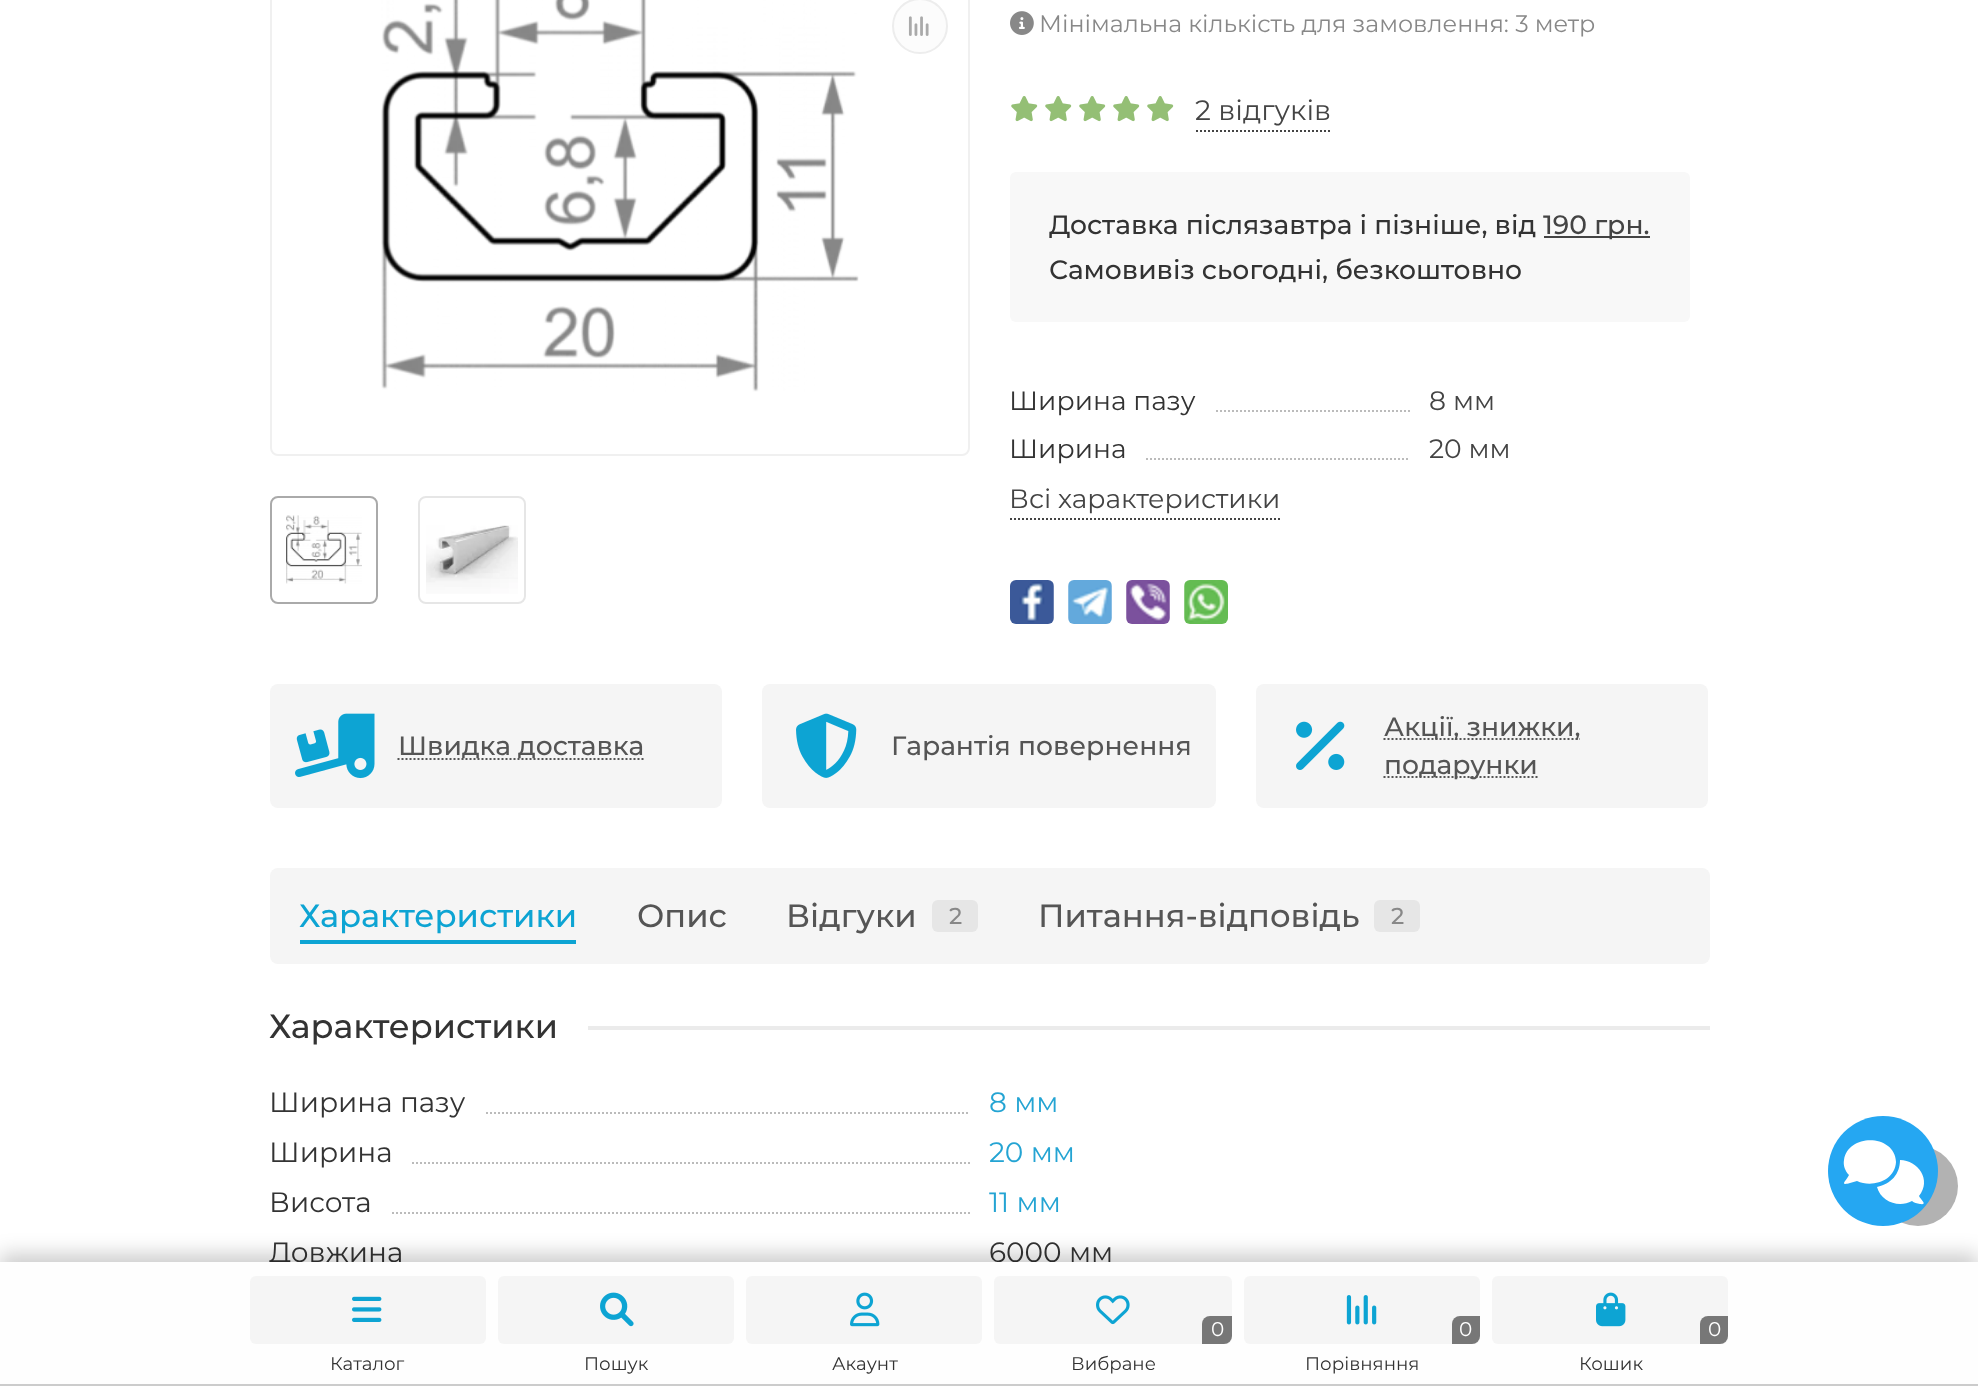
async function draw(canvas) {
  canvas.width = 1978;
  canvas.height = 1386;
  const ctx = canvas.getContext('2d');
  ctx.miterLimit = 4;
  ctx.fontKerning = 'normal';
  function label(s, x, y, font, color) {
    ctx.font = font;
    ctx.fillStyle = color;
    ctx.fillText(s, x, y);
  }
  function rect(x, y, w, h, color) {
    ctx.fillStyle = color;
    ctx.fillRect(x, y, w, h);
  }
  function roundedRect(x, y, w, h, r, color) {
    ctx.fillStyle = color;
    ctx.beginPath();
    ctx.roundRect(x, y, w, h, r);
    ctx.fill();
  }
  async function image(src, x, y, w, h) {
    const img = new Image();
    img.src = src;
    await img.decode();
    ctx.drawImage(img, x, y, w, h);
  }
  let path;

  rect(0, 0, 1978, 1386, '#fff');
  ctx.beginPath();
  ctx.roundRect(271, -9, 698, 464, 7);
  ctx.strokeStyle = '#f0f0f0';
  ctx.lineWidth = 2;
  ctx.stroke();
  await image('assets/img1.png', 381, 0, 478, 392);
  ctx.fillStyle = '#fcfcfc';
  ctx.beginPath();
  ctx.arc(920, 26, 27, 0, 2 * Math.PI);
  ctx.fill();
  ctx.strokeStyle = '#ededed';
  ctx.stroke();
  await image('assets/img2.png', 908, 16, 21, 20);
  ctx.beginPath();
  ctx.roundRect(271, 497, 106, 106, 7);
  ctx.strokeStyle = '#aaa';
  ctx.stroke();
  await image('assets/img3.png', 286, 515, 76, 69);
  ctx.beginPath();
  ctx.roundRect(419, 497, 106, 106, 7);
  ctx.strokeStyle = '#e6e6e6';
  ctx.stroke();
  await image('assets/img4.png', 426, 525, 92, 69);
  await image('assets/img5.png', 1010, 11, 24, 24);
  label('Мінімальна кількість для замовлення: 3 метр', 1039, 32, '23.8px Montserrat', '#888');
  await image('assets/img6.png', 1011, 96, 27, 26);
  await image('assets/img6.png', 1045, 96, 27, 26);
  await image('assets/img6.png', 1079, 96, 27, 26);
  await image('assets/img6.png', 1113, 96, 27, 26);
  await image('assets/img6.png', 1147, 96, 27, 26);
  path = new Path2D('M1196 131H1332');
  ctx.strokeStyle = '#444';
  ctx.setLineDash([2, 2]);
  ctx.stroke(path);
  label('2 відгуків', 1195, 120, '28px Montserrat', '#444');
  roundedRect(1010, 172, 680, 150, 6, '#f8f8f8');
  label('Доставка післязавтра і пізніше, від', 1049, 234, '500 26.6px Montserrat', '#333');
  rect(1544, 236, 106, 2, '#444');
  label('190 грн.', 1543, 234, '500 26.6px Montserrat', '#444');
  label('Самовивіз сьогодні, безкоштовно', 1049, 279, '500 26.6px Montserrat', '#333');
  label('Ширина пазу', 1009, 410, '26.6px Montserrat', '#333');
  path = new Path2D('M1216 411H1410');
  ctx.strokeStyle = '#bbb';
  ctx.stroke(path);
  label('8 мм', 1429, 410, '26.6px Montserrat', '#444');
  label('Ширина', 1009, 458, '26.6px Montserrat', '#333');
  path = new Path2D('M1146 459H1410');
  ctx.stroke(path);
  label('20 мм', 1429, 458, '26.6px Montserrat', '#444');
  path = new Path2D('M1010 519H1280');
  ctx.strokeStyle = '#444';
  ctx.stroke(path);
  label('Всі характеристики', 1009, 508, '26.6px Montserrat', '#444');
  await image('assets/img7.png', 1010, 580, 44, 44);
  await image('assets/img8.png', 1068, 580, 44, 44);
  await image('assets/img9.png', 1126, 580, 44, 44);
  await image('assets/img10.png', 1184, 580, 44, 44);
  roundedRect(270, 684, 452, 124, 8, '#f5f5f5');
  await image('assets/img11.png', 295, 713, 80, 66);
  path = new Path2D('M397.5 759H643.5');
  ctx.strokeStyle = '#555';
  ctx.stroke(path);
  label('Швидка доставка', 398, 755, '500 26.6px Montserrat', '#555');
  roundedRect(762, 684, 454, 124, 8, '#f5f5f5');
  await image('assets/img12.png', 796, 713, 61, 65);
  label('Гарантія повернення', 891, 755, '500 26.6px Montserrat', '#555');
  roundedRect(1256, 684, 452, 124, 8, '#f5f5f5');
  await image('assets/img13.png', 1296, 721, 49, 49);
  path = new Path2D('M1383.5 739H1580');
  ctx.stroke(path);
  label('Акції, знижки,', 1384, 736, '500 26.6px Montserrat', '#555');
  path = new Path2D('M1383.5 777H1537.5');
  ctx.stroke(path);
  label('подарунки', 1384, 774, '500 26.6px Montserrat', '#555');
  roundedRect(270, 868, 1440, 96, 8, '#f5f5f5');
  label('Характеристики', 299, 927, '500 32.25px Montserrat', '#0da4d3');
  rect(300, 940, 276, 4, '#0da4d3');
  label('Опис', 637, 927, '500 32.25px Montserrat', '#555');
  label('Відгуки', 786, 927, '500 32.25px Montserrat', '#555');
  roundedRect(932, 900, 46, 32, 6, '#e6e6e6');
  label('2', 949, 924, '500 23px Montserrat', '#888');
  label('Питання-відповідь', 1038, 927, '500 32.25px Montserrat', '#555');
  roundedRect(1374, 900, 46, 32, 6, '#e6e6e6');
  label('2', 1391, 924, '500 23px Montserrat', '#888');
  label('Характеристики', 269, 1038, '500 33.5px Montserrat', '#333');
  rect(588, 1026, 1122, 4, '#ebebeb');
  label('Ширина пазу', 269, 1112, '28px Montserrat', '#333');
  path = new Path2D('M486 1113H970');
  ctx.strokeStyle = '#bbb';
  ctx.stroke(path);
  label('8 мм', 989, 1112, '28px Montserrat', '#24a4d3');
  label('Ширина', 269, 1162, '28px Montserrat', '#333');
  path = new Path2D('M412 1163H970');
  ctx.stroke(path);
  label('20 мм', 989, 1162, '28px Montserrat', '#24a4d3');
  label('Висота', 269, 1212, '28px Montserrat', '#333');
  path = new Path2D('M392 1213H970');
  ctx.stroke(path);
  label('11 мм', 989, 1212, '28px Montserrat', '#24a4d3');
  label('Довжина', 269, 1262, '28px Montserrat', '#333');
  label('6000 мм', 989, 1262, '28px Montserrat', '#333');
  ctx.fillStyle = '#00000033';
  ctx.filter = 'blur(10px)';
  ctx.beginPath();
  ctx.rect(0, 1254, 1978, 124);
  ctx.fill();
  ctx.filter = 'none';
  ctx.fillStyle = '#b2b2b2';
  ctx.beginPath();
  ctx.arc(1918, 1186, 40, 0, 2 * Math.PI);
  ctx.fill();
  ctx.fillStyle = '#25a7f2';
  ctx.beginPath();
  ctx.arc(1883, 1171, 55, 0, 2 * Math.PI);
  ctx.fill();
  ctx.fillStyle = '#fff';
  path = new Path2D('M1896 1162C1895 1134 1848 1133 1844 1160C1843 1165 1845 1171 1849 1175C1846 1181 1839 1186 1850 1183L1857 1181C1872 1188 1895 1181 1896 1162ZM1919 1196C1932 1180 1918 1160 1900 1160C1900 1174 1891 1184 1877 1187C1881 1202 1899 1208 1912 1201C1914 1203 1917 1203 1920 1204C1928 1205 1921 1200 1919 1196Z');
  ctx.fill(path);
  rect(0, 1262, 1978, 122, '#fefefe');
  rect(0, 1384, 1978, 2, '#ccc');
  roundedRect(250, 1276, 236, 68, 6, '#f5f5f5');
  await image('assets/img14.png', 352, 1296, 30, 26);
  label('Каталог', 330, 1370, '18.25px Montserrat', '#333');
  roundedRect(498, 1276, 236, 68, 6, '#f5f5f5');
  await image('assets/img15.png', 600, 1292, 34, 35);
  label('Пошук', 584, 1370, '18.25px Montserrat', '#333');
  roundedRect(746, 1276, 236, 68, 6, '#f5f5f5');
  await image('assets/img16.png', 850, 1292, 30, 35);
  label('Акаунт', 832, 1370, '18.25px Montserrat', '#333');
  roundedRect(994, 1276, 238, 68, 6, '#f5f5f5');
  await image('assets/img17.png', 1096, 1295, 34, 30);
  ctx.fillStyle = '#777';
  ctx.beginPath();
  ctx.roundRect(1202, 1316, 30, 28, [8, 0, 8, 0]);
  ctx.fill();
  label('0', 1211, 1336, '20px Montserrat', '#fff');
  label('Вибране', 1071, 1370, '18.25px Montserrat', '#333');
  roundedRect(1244, 1276, 236, 68, 6, '#f5f5f5');
  await image('assets/img18.png', 1346, 1295, 31, 30);
  ctx.fillStyle = '#777';
  ctx.beginPath();
  ctx.roundRect(1452, 1316, 28, 28, [8, 0, 8, 0]);
  ctx.fill();
  label('0', 1459, 1336, '20px Montserrat', '#fff');
  label('Порівняння', 1305, 1370, '18.25px Montserrat', '#333');
  roundedRect(1492, 1276, 236, 68, 6, '#f5f5f5');
  await image('assets/img19.png', 1596, 1292, 30, 35);
  ctx.fillStyle = '#777';
  ctx.beginPath();
  ctx.roundRect(1700, 1316, 28, 28, [8, 0, 8, 0]);
  ctx.fill();
  label('0', 1708, 1336, '20px Montserrat', '#fff');
  label('Кошик', 1579, 1370, '18.25px Montserrat', '#333');
}

draw(document.querySelector('canvas'));
